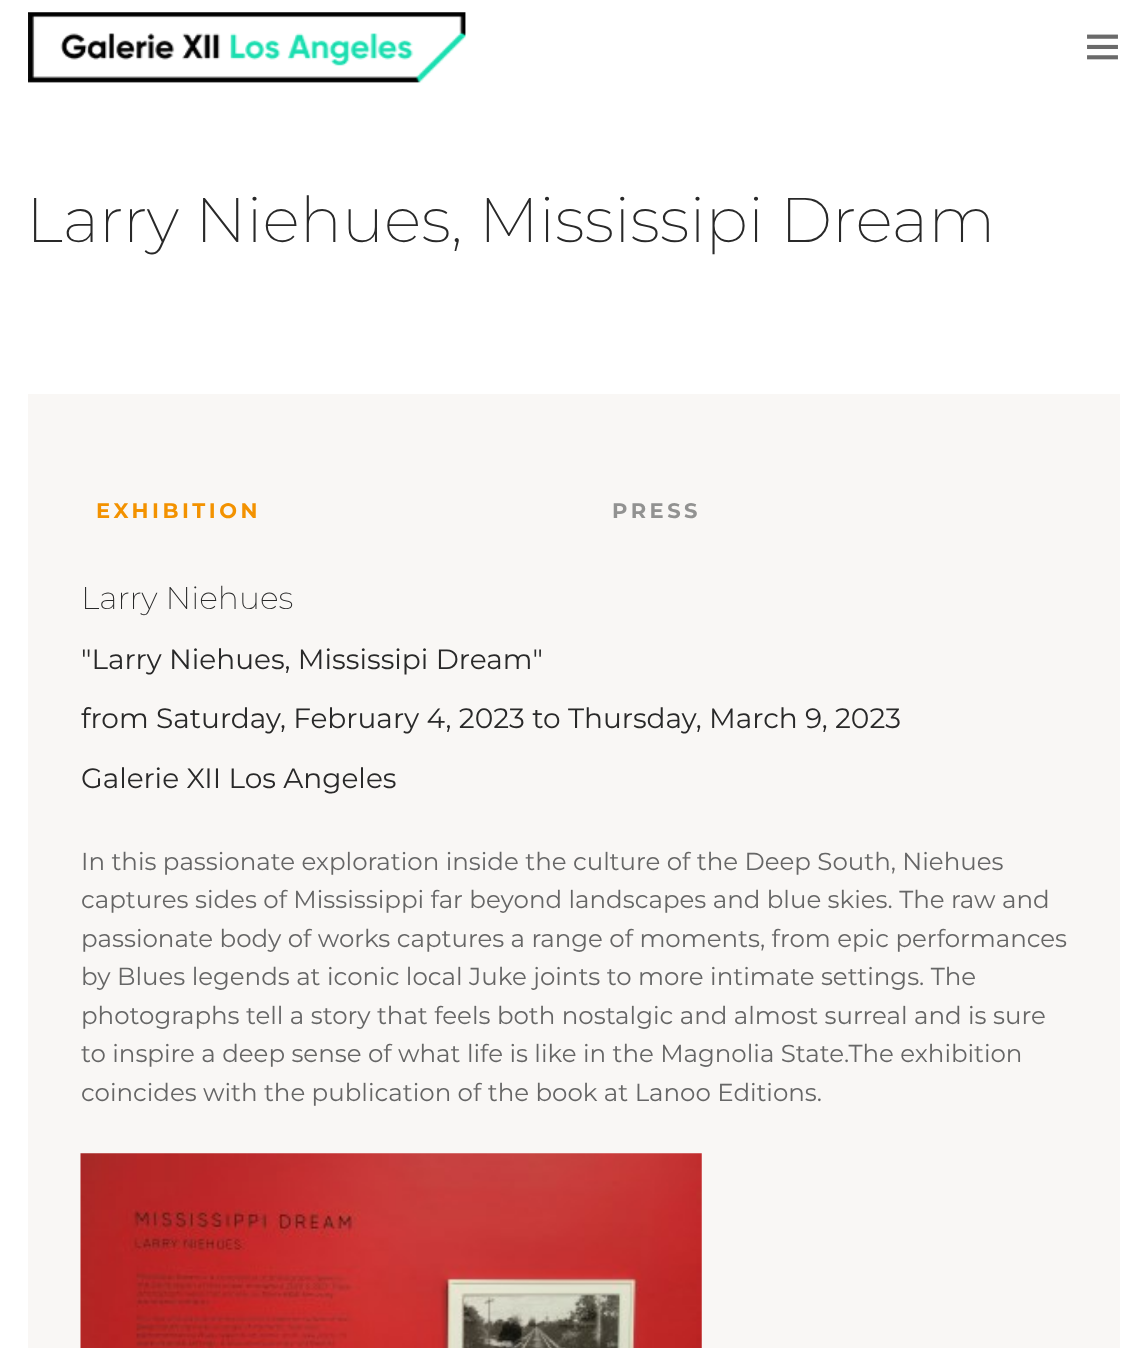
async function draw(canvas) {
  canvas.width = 1147;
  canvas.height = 1348;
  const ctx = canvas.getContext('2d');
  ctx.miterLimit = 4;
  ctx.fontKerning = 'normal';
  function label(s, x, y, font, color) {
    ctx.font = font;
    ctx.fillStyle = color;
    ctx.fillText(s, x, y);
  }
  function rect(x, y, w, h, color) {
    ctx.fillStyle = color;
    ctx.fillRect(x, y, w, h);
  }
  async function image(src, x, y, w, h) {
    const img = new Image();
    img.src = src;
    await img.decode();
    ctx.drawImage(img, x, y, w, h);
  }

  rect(0, 0, 1147, 1348, '#fff');
  await image('assets/img1.png', 28, 12, 438, 71);
  await image('assets/img2.png', 1087, 34, 31, 26);
  label('Larry Niehues, Mississipi Dream', 26, 242, '200 63px Montserrat', '#292929');
  rect(28, 394, 1092, 954, '#f9f7f5');
  ctx.letterSpacing = '3.5px';
  label('EXHIBITION', 96, 518, 'bold 21px Montserrat', '#f39200');
  label('PRESS', 612, 518, 'bold 21px Montserrat', '#929291');
  ctx.letterSpacing = '0px';
  label('Larry Niehues', 81, 609, '200 31.5px Montserrat', '#292929');
  label('"Larry Niehues, Mississipi Dream"', 81, 669, '28px Montserrat', '#292929');
  label('from Saturday, February 4, 2023 to Thursday, March 9, 2023', 81, 728, '28px Montserrat', '#292929');
  label('Galerie XII Los Angeles', 81, 788, '28px Montserrat', '#292929');
  label('In this passionate exploration inside the culture of the Deep South, Niehues', 81, 870, '24.5px Montserrat', '#666');
  label('captures sides of Mississippi far beyond landscapes and blue skies. The raw and', 81, 908, '24.5px Montserrat', '#666');
  label('passionate body of works captures a range of moments, from epic performances', 81, 947, '24.5px Montserrat', '#666');
  label('by Blues legends at iconic local Juke joints to more intimate settings. The', 81, 985, '24.5px Montserrat', '#666');
  label('photographs tell a story that feels both nostalgic and almost surreal and is sure', 81, 1024, '24.5px Montserrat', '#666');
  label('to inspire a deep sense of what life is like in the Magnolia State.The exhibition', 81, 1062, '24.5px Montserrat', '#666');
  label('coincides with the publication of the book at Lanoo Editions.', 81, 1101, '24.5px Montserrat', '#666');
  await image('assets/img3.png', 80, 1153, 622, 195);
}

draw(document.querySelector('canvas'));
